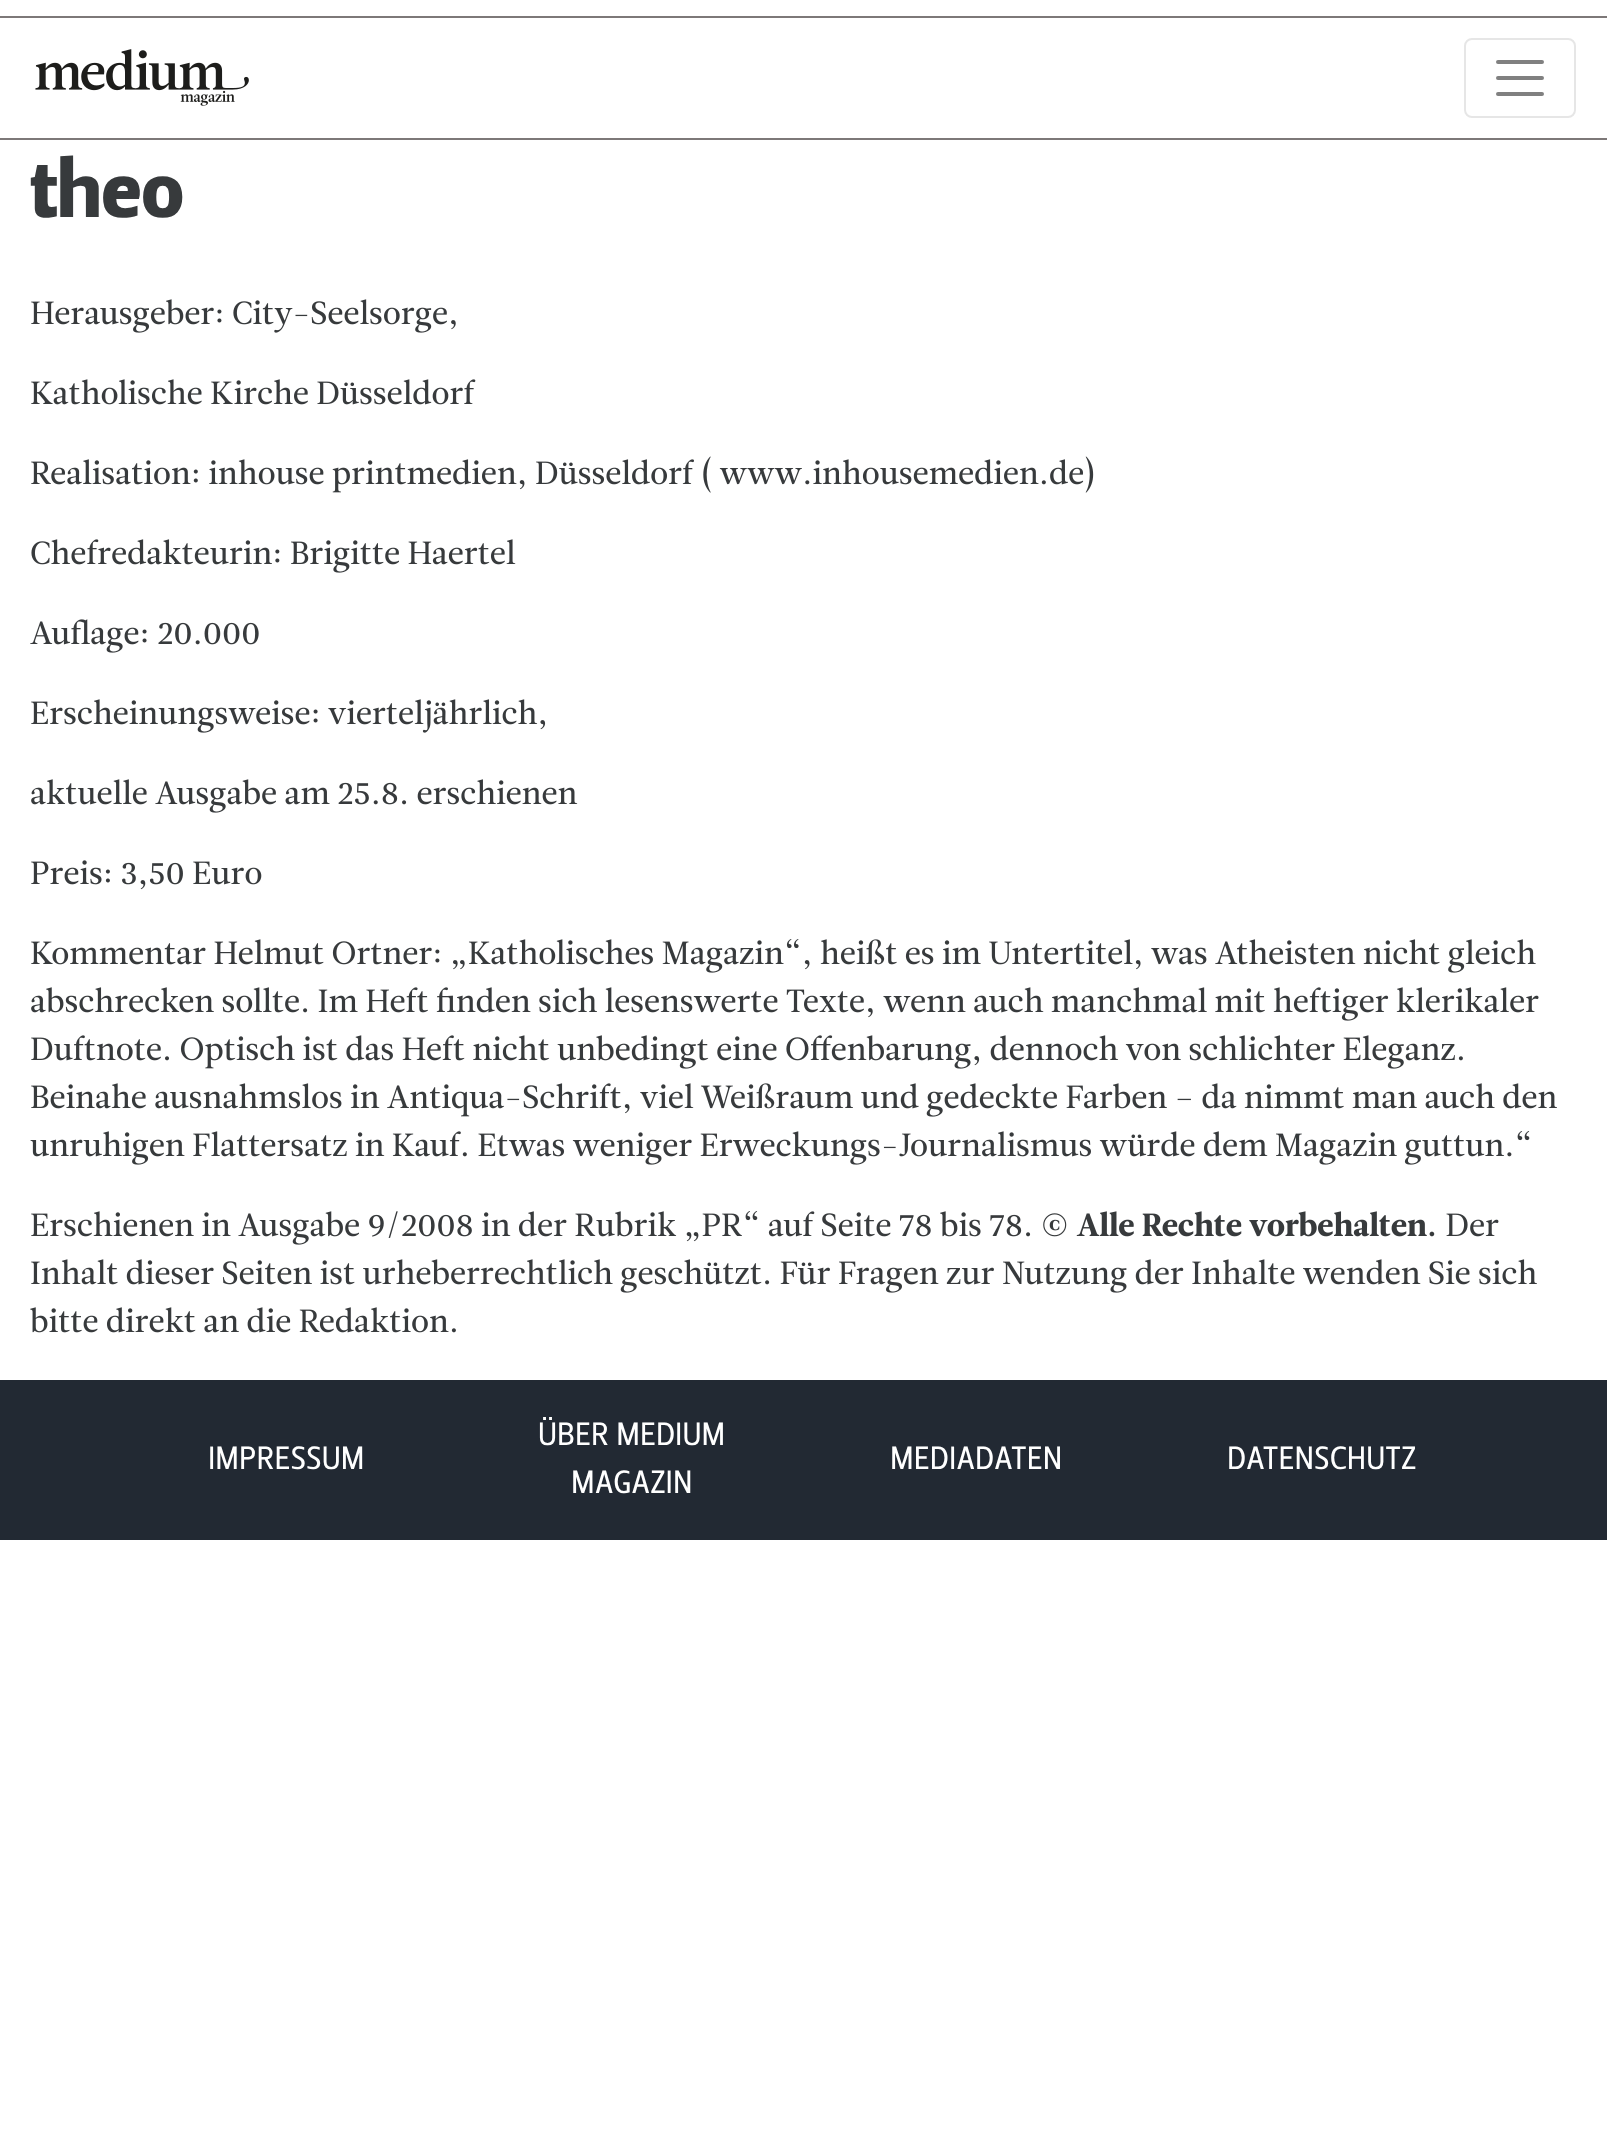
async function draw(canvas) {
  canvas.width = 1607;
  canvas.height = 2138;
  const ctx = canvas.getContext('2d');
  ctx.miterLimit = 4;
  ctx.fontKerning = 'normal';
  function label(s, x, y, font, color) {
    ctx.font = font;
    ctx.fillStyle = color;
    ctx.fillText(s, x, y);
  }
  function rect(x, y, w, h, color) {
    ctx.fillStyle = color;
    ctx.fillRect(x, y, w, h);
  }
  async function image(src, x, y, w, h) {
    const img = new Image();
    img.src = src;
    await img.decode();
    ctx.drawImage(img, x, y, w, h);
  }
  let path;

  rect(0, 0, 1607, 2138, '#fff');
  rect(0, 16, 1607, 2, '#7d7878');
  rect(0, 138, 1607, 2, '#7d7878');
  await image('assets/img1.png', 35, 49, 214, 57);
  ctx.beginPath();
  ctx.roundRect(1465, 39, 110, 78, 7);
  ctx.strokeStyle = '#e6e6e6';
  ctx.lineWidth = 2;
  ctx.stroke();
  path = new Path2D('M1498 62H1542M1498 78H1542M1498 94H1542');
  ctx.strokeStyle = '#808080';
  ctx.lineWidth = 4;
  ctx.lineCap = 'round';
  ctx.stroke(path);
  label('theo', 30, 217, '80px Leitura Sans', '#373a3c');
  await image('assets/img2.png', 31, 299, 425, 34);
  await image('assets/img3.png', 31, 379, 445, 26);
  await image('assets/img4.png', 31, 456, 1063, 37);
  await image('assets/img5.png', 31, 539, 485, 34);
  await image('assets/img6.png', 30, 619, 229, 34);
  await image('assets/img7.png', 31, 699, 515, 34);
  await image('assets/img8.png', 31, 779, 547, 34);
  await image('assets/img9.png', 31, 860, 231, 30);
  await image('assets/img10.png', 31, 939, 1505, 34);
  await image('assets/img11.png', 31, 987, 1508, 34);
  await image('assets/img12.png', 31, 1035, 1432, 34);
  await image('assets/img13.png', 31, 1083, 1526, 34);
  await image('assets/img14.png', 30, 1131, 1500, 34);
  await image('assets/img15.png', 31, 1211, 1000, 34);
  await image('assets/img16.png', 1043, 1211, 392, 26);
  await image('assets/img17.png', 1446, 1213, 53, 24);
  await image('assets/img18.png', 31, 1259, 1506, 34);
  await image('assets/img19.png', 30, 1307, 426, 26);
  rect(0, 1380, 1607, 160, '#222933');
  label('IMPRESSUM', 208, 1469, '32px "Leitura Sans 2"', '#fff');
  label('ÜBER MEDIUM', 538, 1445, '32px "Leitura Sans 2"', '#fff');
  label('MAGAZIN', 571, 1493, '32px "Leitura Sans 2"', '#fff');
  label('MEDIADATEN', 890, 1469, '32px "Leitura Sans 2"', '#fff');
  label('DATENSCHUTZ', 1227, 1469, '32px "Leitura Sans 2"', '#fff');
}

draw(document.querySelector('canvas'));
